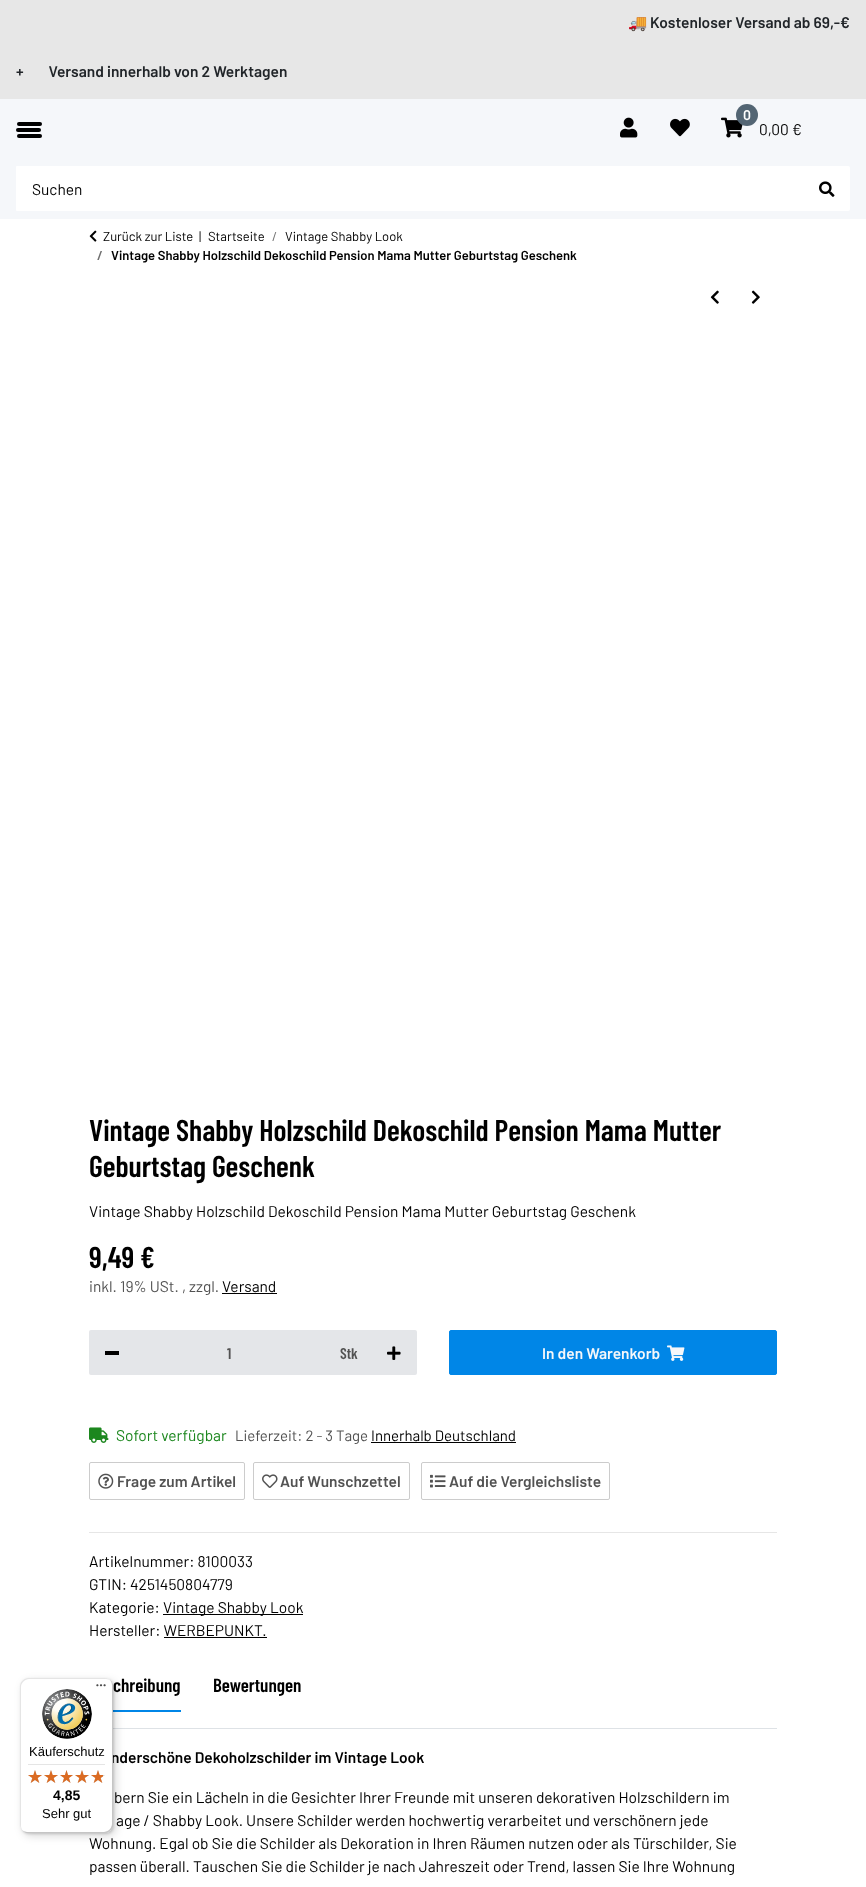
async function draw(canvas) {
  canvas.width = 866;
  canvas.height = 1887;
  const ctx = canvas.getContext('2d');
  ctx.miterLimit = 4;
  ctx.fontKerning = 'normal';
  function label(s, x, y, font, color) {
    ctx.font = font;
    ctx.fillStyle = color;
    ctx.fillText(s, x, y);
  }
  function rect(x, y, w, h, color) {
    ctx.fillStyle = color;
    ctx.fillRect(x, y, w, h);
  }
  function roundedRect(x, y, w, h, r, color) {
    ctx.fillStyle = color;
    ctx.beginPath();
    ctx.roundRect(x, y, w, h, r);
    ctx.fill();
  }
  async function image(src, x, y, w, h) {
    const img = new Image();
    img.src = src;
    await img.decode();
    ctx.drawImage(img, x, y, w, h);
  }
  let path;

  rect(0, 0, 866, 1887, '#fff');
  rect(0, 0, 866, 99, '#e7e7e7');
  label('🚚', 628, 28, '15.5px Noto Color Emoji', '#212529');
  label('Kostenloser Versand ab 69,-€', 650, 28, '600 15.5px Barlow', '#212529');
  label('+        Versand innerhalb von 2 Werktagen', 16, 77, '600 15.5px Barlow', '#212529');
  rect(0, 99, 866, 120, '#f5f7fa');
  roundedRect(16, 128, 25, 4, 2, '#000');
  roundedRect(17, 122, 25, 4, 2, '#000');
  roundedRect(17, 134, 25, 4, 2, '#000');
  await image('assets/img1.png', 620, 117, 18, 21);
  await image('assets/img2.png', 670, 118, 20, 19);
  await image('assets/img3.png', 721, 117, 22, 21);
  ctx.fillStyle = '#536573';
  ctx.beginPath();
  ctx.arc(747, 115, 11, 0, 2 * Math.PI);
  ctx.fill();
  label('0', 743, 120, '600 14px Barlow', '#fff');
  label('0,00 €', 759, 135, '15.5px Barlow', '#000');
  ctx.fillStyle = '#fff';
  ctx.beginPath();
  ctx.rect(16.5, 166.5, 787, 44);
  ctx.fill();
  ctx.strokeStyle = '#fff';
  ctx.stroke();
  label('Suchen', 32, 195, '15.5px Barlow', '#000');
  ctx.fillStyle = '#fff';
  ctx.beginPath();
  ctx.roundRect(803, 166, 47, 45, [0, 2, 2, 0]);
  ctx.fill();
  await image('assets/img4.png', 819, 181, 16, 16);
  rect(113, 1728, 664, 1, '#dee2e6');
  rect(113, 1710, 68, 2, '#0086e7');
  ctx.fillStyle = '#00000026';
  ctx.filter = 'blur(4px)';
  ctx.beginPath();
  ctx.roundRect(23, 1681, 93, 155, 8);
  ctx.fill();
  ctx.filter = 'none';
  ctx.filter = 'blur(1px)';
  ctx.beginPath();
  ctx.roundRect(21, 1679, 93, 155, 8);
  ctx.fill();
  ctx.filter = 'none';
  label('nderschöne Dekoholzschilder im Vintage Look', 111, 1763, '600 15.5px Barlow', '#000');
  roundedRect(20, 1678, 93, 155, 8, '#fff');
  ctx.fillStyle = '#e5e5e5';
  path = new Path2D('M29 1679H106C108 1679 110 1680 112 1682C110 1680 108 1678 105 1678H28C24 1678 20 1682 20 1686V1825C20 1828 22 1830 24 1832C22 1830 21 1828 21 1826V1687C21 1683 25 1679 29 1679Z');
  ctx.fill(path);
  ctx.fillStyle = '#00000033';
  path = new Path2D('M21 1829C23 1831 25 1833 28 1833H105C109 1833 113 1829 113 1825V1686C113 1683 111 1681 109 1679C111 1681 112 1683 112 1685V1824C112 1828 108 1832 104 1832H27C25 1832 23 1831 21 1829Z');
  ctx.fill(path);
  ctx.fillStyle = '#32323233';
  path = new Path2D('M22 1830C23 1832 26 1833 28 1833H105C109 1833 113 1829 113 1825V1686C113 1684 112 1681 110 1680C111 1681 112 1683 112 1685V1824C112 1829 109 1832 104 1832H27C25 1832 23 1831 22 1830Z');
  ctx.fill(path);
  ctx.fillStyle = '#ffffff4d';
  path = new Path2D('M112 1686C112 1681 109 1678 104 1678H105C109 1678 113 1682 113 1686V1825C113 1829 109 1833 105 1833H28C24 1833 20 1829 20 1825V1824C20 1829 23 1832 28 1832H104C109 1832 112 1829 112 1824Z');
  ctx.fill(path);
  await image('assets/img5.png', 96, 1684, 10, 3);
  await image('assets/img6.png', 42, 1689, 50, 50);
  label('Käuferschutz', 29, 1756, '13px Liberation Sans', '#000');
  rect(28, 1764, 77, 1, '#e5e5e5');
  await image('assets/img7.png', 28, 1770, 14, 13);
  await image('assets/img7.png', 44, 1770, 14, 13);
  await image('assets/img8.png', 60, 1770, 13, 13);
  await image('assets/img7.png', 75, 1770, 14, 13);
  await image('assets/img7.png', 91, 1770, 14, 13);
  await image('assets/img9.png', 28, 1770, 14, 13);
  await image('assets/img9.png', 44, 1770, 14, 13);
  await image('assets/img10.png', 60, 1770, 13, 13);
  await image('assets/img9.png', 75, 1770, 14, 13);
  await image('assets/img11.png', 91, 1770, 12, 13);
  label('4,85', 53, 1800, 'bold 14px Liberation Sans', '#000');
  label('Sehr gut', 42, 1818, '13px Liberation Sans', '#000');
  await image('assets/img12.png', 89, 230, 8, 12);
  label('Zurück zur Liste', 103, 241, '13px Barlow', '#000');
  label('|', 199, 241, '13px Barlow', '#000');
  label('Startseite', 208, 241, '13px Barlow', '#000');
  label('/', 272, 241, '13px Barlow', '#707070');
  label('Vintage Shabby Look', 285, 241, '13px Barlow', '#000');
  label('/', 97, 260, '600 13px Barlow', '#707070');
  label('Vintage Shabby Holzschild Dekoschild Pension Mama Mutter Geburtstag Geschenk', 111, 260, '600 13px Barlow', '#000');
  await image('assets/img13.png', 710, 290, 9, 14);
  await image('assets/img14.png', 751, 290, 9, 14);
  label('Vintage Shabby Holzschild Dekoschild Pension Mama Mutter', 89, 1141, '600 30px Barlow Condensed', '#000');
  label('Geburtstag Geschenk', 89, 1177, '600 30px Barlow Condensed', '#000');
  label('Vintage Shabby Holzschild Dekoschild Pension Mama Mutter Geburtstag Geschenk', 89, 1217, '15.5px Barlow', '#000');
  label('9,49 €', 89, 1268, '600 30px Barlow Condensed', '#000');
  label('inkl. 19% USt. , zzgl.', 89, 1292, '15.5px Barlow', '#525252');
  label('Versand', 222, 1292, '15.5px Barlow', '#000');
  rect(222, 1293, 55, 1, '#000');
  roundedRect(89, 1330, 328, 45, 2, '#e4e6e9');
  rect(105, 1351, 14, 4, '#000');
  label('1', 227, 1359, '600 15.5px Barlow Condensed', '#525252');
  label('Stk', 340, 1359, '600 15.5px Barlow Condensed', '#525252');
  await image('assets/img15.png', 387, 1346, 14, 14);
  ctx.fillStyle = '#0086e7';
  ctx.beginPath();
  ctx.roundRect(449.5, 1330.5, 327, 44, 1.5);
  ctx.fill();
  ctx.strokeStyle = '#0086e7';
  ctx.stroke();
  label('In den Warenkorb', 542, 1359, '600 15.5px Barlow', '#f5f7fa');
  await image('assets/img16.png', 667, 1345, 18, 16);
  await image('assets/img17.png', 89, 1427, 20, 16);
  label('Sofort verfügbar', 116, 1441, '15.5px Barlow', '#1c871e');
  label('Lieferzeit: 2 - 3 Tage', 235, 1441, '15px Barlow', '#525252');
  label('Innerhalb Deutschland', 371, 1441, '15px Barlow', '#000');
  rect(371, 1442, 145, 1, '#000');
  ctx.beginPath();
  ctx.roundRect(89.5, 1462.5, 155, 37, 1.5);
  ctx.strokeStyle = '#ccc';
  ctx.stroke();
  await image('assets/img18.png', 98, 1473, 16, 16);
  label('Frage zum Artikel', 117, 1487, '600 15.5px Barlow', '#525252');
  ctx.beginPath();
  ctx.roundRect(253.5, 1462.5, 156, 37, 1.5);
  ctx.stroke();
  await image('assets/img19.png', 262, 1474, 16, 14);
  label('Auf Wunschzettel', 280, 1487, '600 15.5px Barlow', '#525252');
  ctx.beginPath();
  ctx.roundRect(421.5, 1462.5, 188, 37, 1.5);
  ctx.stroke();
  await image('assets/img20.png', 430, 1474, 16, 14);
  label('Auf die Vergleichsliste', 449, 1487, '600 15.5px Barlow', '#525252');
  rect(89, 1532, 688, 1, '#e6e6e6');
  label('Artikelnummer: 8100033', 89, 1567, '15.5px Barlow', '#000');
  label('GTIN: 4251450804779', 89, 1590, '15.5px Barlow', '#000');
  label('Kategorie:', 89, 1613, '15.5px Barlow', '#000');
  rect(163, 1614, 140, 1, '#000');
  label('Vintage Shabby Look', 163, 1613, '15.5px Barlow', '#000');
  label('Hersteller: WERBEPUNKT.', 89, 1636, '15.5px Barlow', '#000');
  rect(164, 1637, 103, 1, '#000');
  label('chreibung', 113, 1692, '600 19px Barlow Condensed', '#000');
  label('Bewertungen', 213, 1692, '600 19px Barlow Condensed', '#000');
  label('bern Sie ein Lächeln in die Gesichter Ihrer Freunde mit unseren dekorativen Holzschildern im', 114, 1803, '15.5px Barlow', '#000');
  label('age / Shabby Look. Unsere Schilder werden hochwertig verarbeitet und verschönern jede', 116, 1826, '15.5px Barlow', '#000');
  label('Wohnung. Egal ob Sie die Schilder als Dekoration in Ihren Räumen nutzen oder als Türschilder, Sie', 89, 1849, '15.5px Barlow', '#000');
  label('passen überall. Tauschen Sie die Schilder je nach Jahreszeit oder Trend, lassen Sie Ihre Wohnung', 89, 1872, '15.5px Barlow', '#000');
}

draw(document.querySelector('canvas'));
